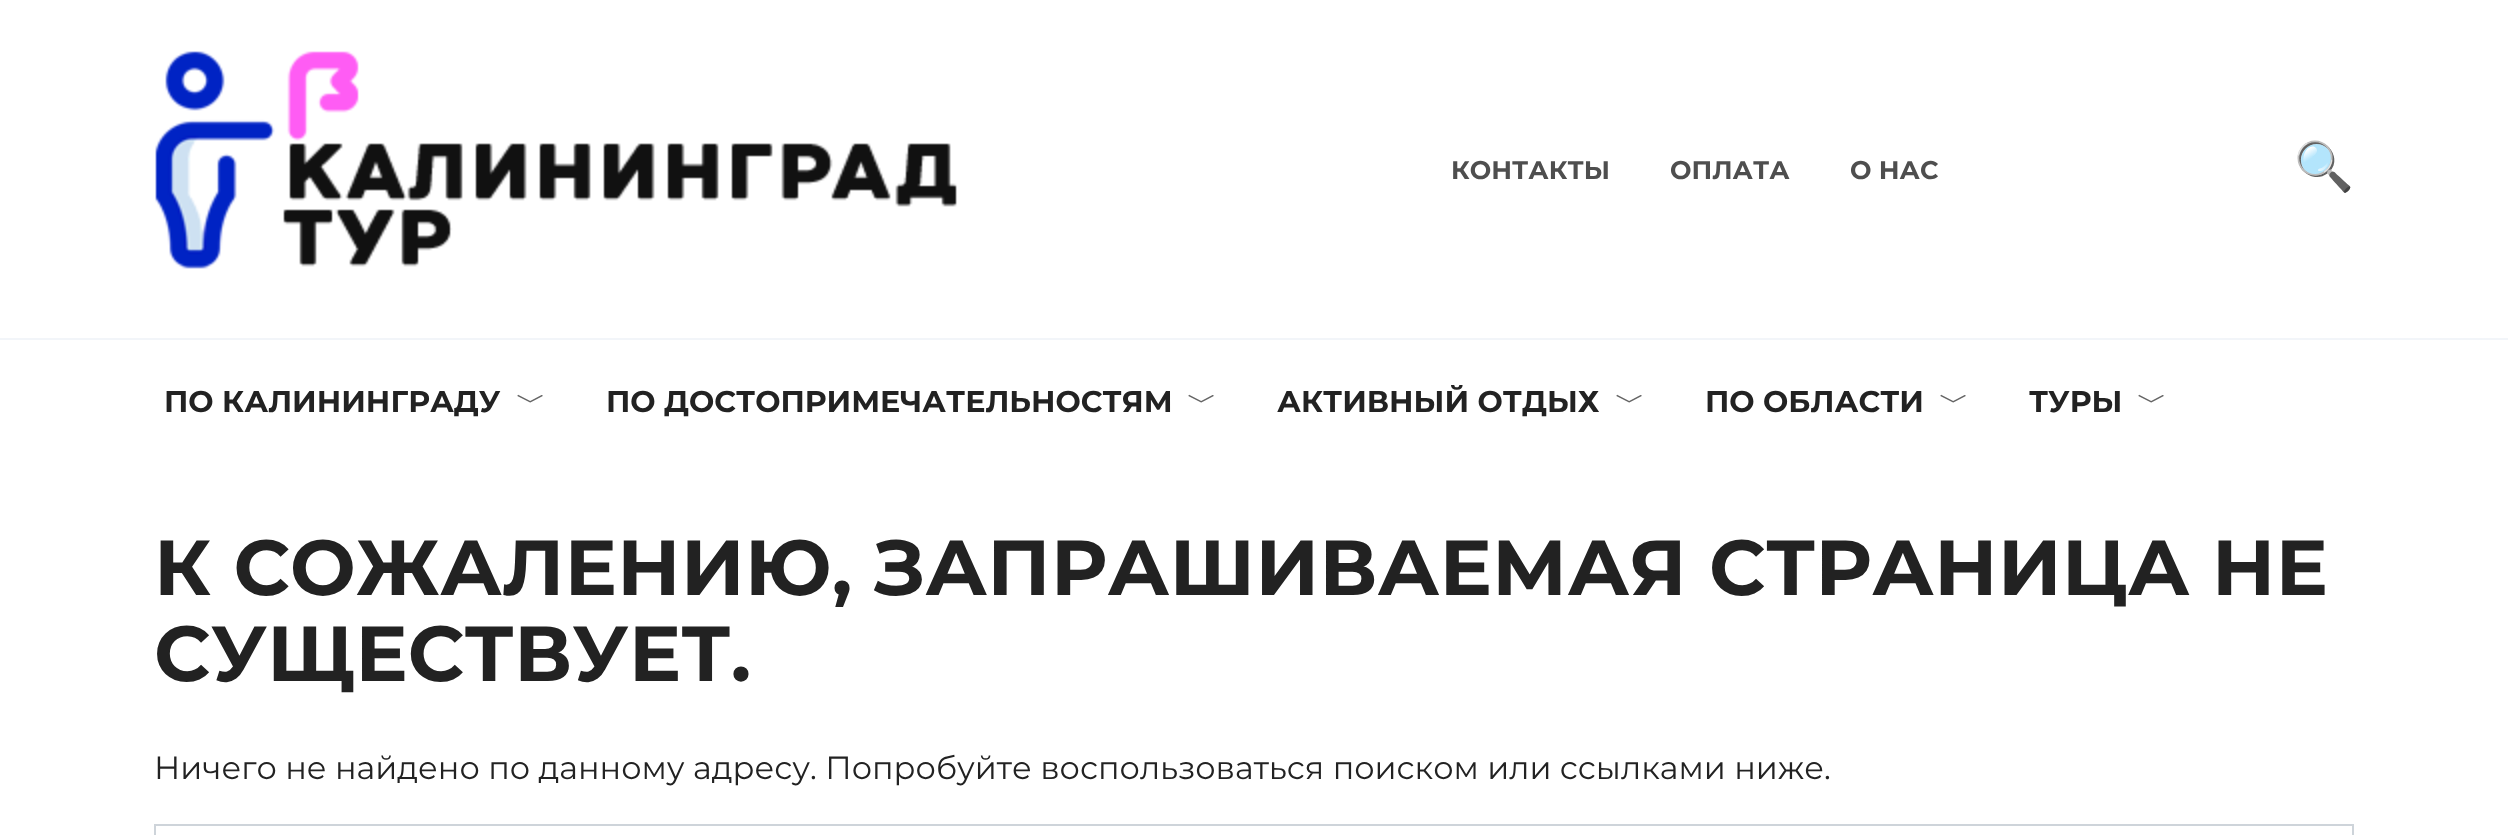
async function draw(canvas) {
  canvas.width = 2508;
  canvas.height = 835;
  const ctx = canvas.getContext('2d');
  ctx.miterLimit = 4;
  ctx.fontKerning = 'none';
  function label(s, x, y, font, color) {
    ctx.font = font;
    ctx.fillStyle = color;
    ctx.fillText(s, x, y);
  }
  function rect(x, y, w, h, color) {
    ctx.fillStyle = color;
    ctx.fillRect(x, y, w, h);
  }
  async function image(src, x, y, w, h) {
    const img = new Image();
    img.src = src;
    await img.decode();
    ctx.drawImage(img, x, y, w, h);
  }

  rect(0, 0, 2508, 835, '#fff');
  rect(0, 338, 2508, 2, '#f2f5f9');
  await image('assets/img1.png', 155, 51, 802, 218);
  label('КОНТАКТЫ', 1451, 179, 'bold 25.5px Montserrat', '#4e4e4e');
  label('ОПЛАТА', 1670, 179, 'bold 25.5px Montserrat', '#4e4e4e');
  label('О НАС', 1850, 179, 'bold 25.5px Montserrat', '#4e4e4e');
  label('🔍', 2294, 183, '48px Noto Color Emoji', '#222');
  label('ПО КАЛИНИНГРАДУ', 164, 412, 'bold 30px Montserrat', '#222');
  label('﹀', 516, 412, '500 30px WenQuanYi Zen Hei', '#646464');
  label('ПО ДОСТОПРИМЕЧАТЕЛЬНОСТЯМ', 606, 412, 'bold 30px Montserrat', '#222');
  label('﹀', 1187, 412, '500 30px WenQuanYi Zen Hei', '#646464');
  label('АКТИВНЫЙ ОТДЫХ', 1277, 412, 'bold 30px Montserrat', '#222');
  label('﹀', 1615, 412, '500 30px WenQuanYi Zen Hei', '#646464');
  label('ПО ОБЛАСТИ', 1705, 412, 'bold 30px Montserrat', '#222');
  label('﹀', 1939, 412, '500 30px WenQuanYi Zen Hei', '#646464');
  label('ТУРЫ', 2029, 412, 'bold 30px Montserrat', '#222');
  label('﹀', 2137, 412, '500 30px WenQuanYi Zen Hei', '#646464');
  label('К СОЖАЛЕНИЮ, ЗАПРАШИВАЕМАЯ', 154, 595, 'bold 78px Montserrat', '#222');
  label('СТРАНИЦА НЕ', 1709, 595, 'bold 78px Montserrat', '#222');
  label('СУЩЕСТВУЕТ.', 154, 681, 'bold 78px Montserrat', '#222');
  label('Ничего не найдено по данному адресу. Попробуйте воспользоваться поиском или ссылками ниже.', 154, 779, '32px Montserrat', '#222');
  ctx.strokeStyle = '#ced4da';
  ctx.lineWidth = 2;
  ctx.strokeRect(155, 825, 2198, 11);
}

draw(document.querySelector('canvas'));
